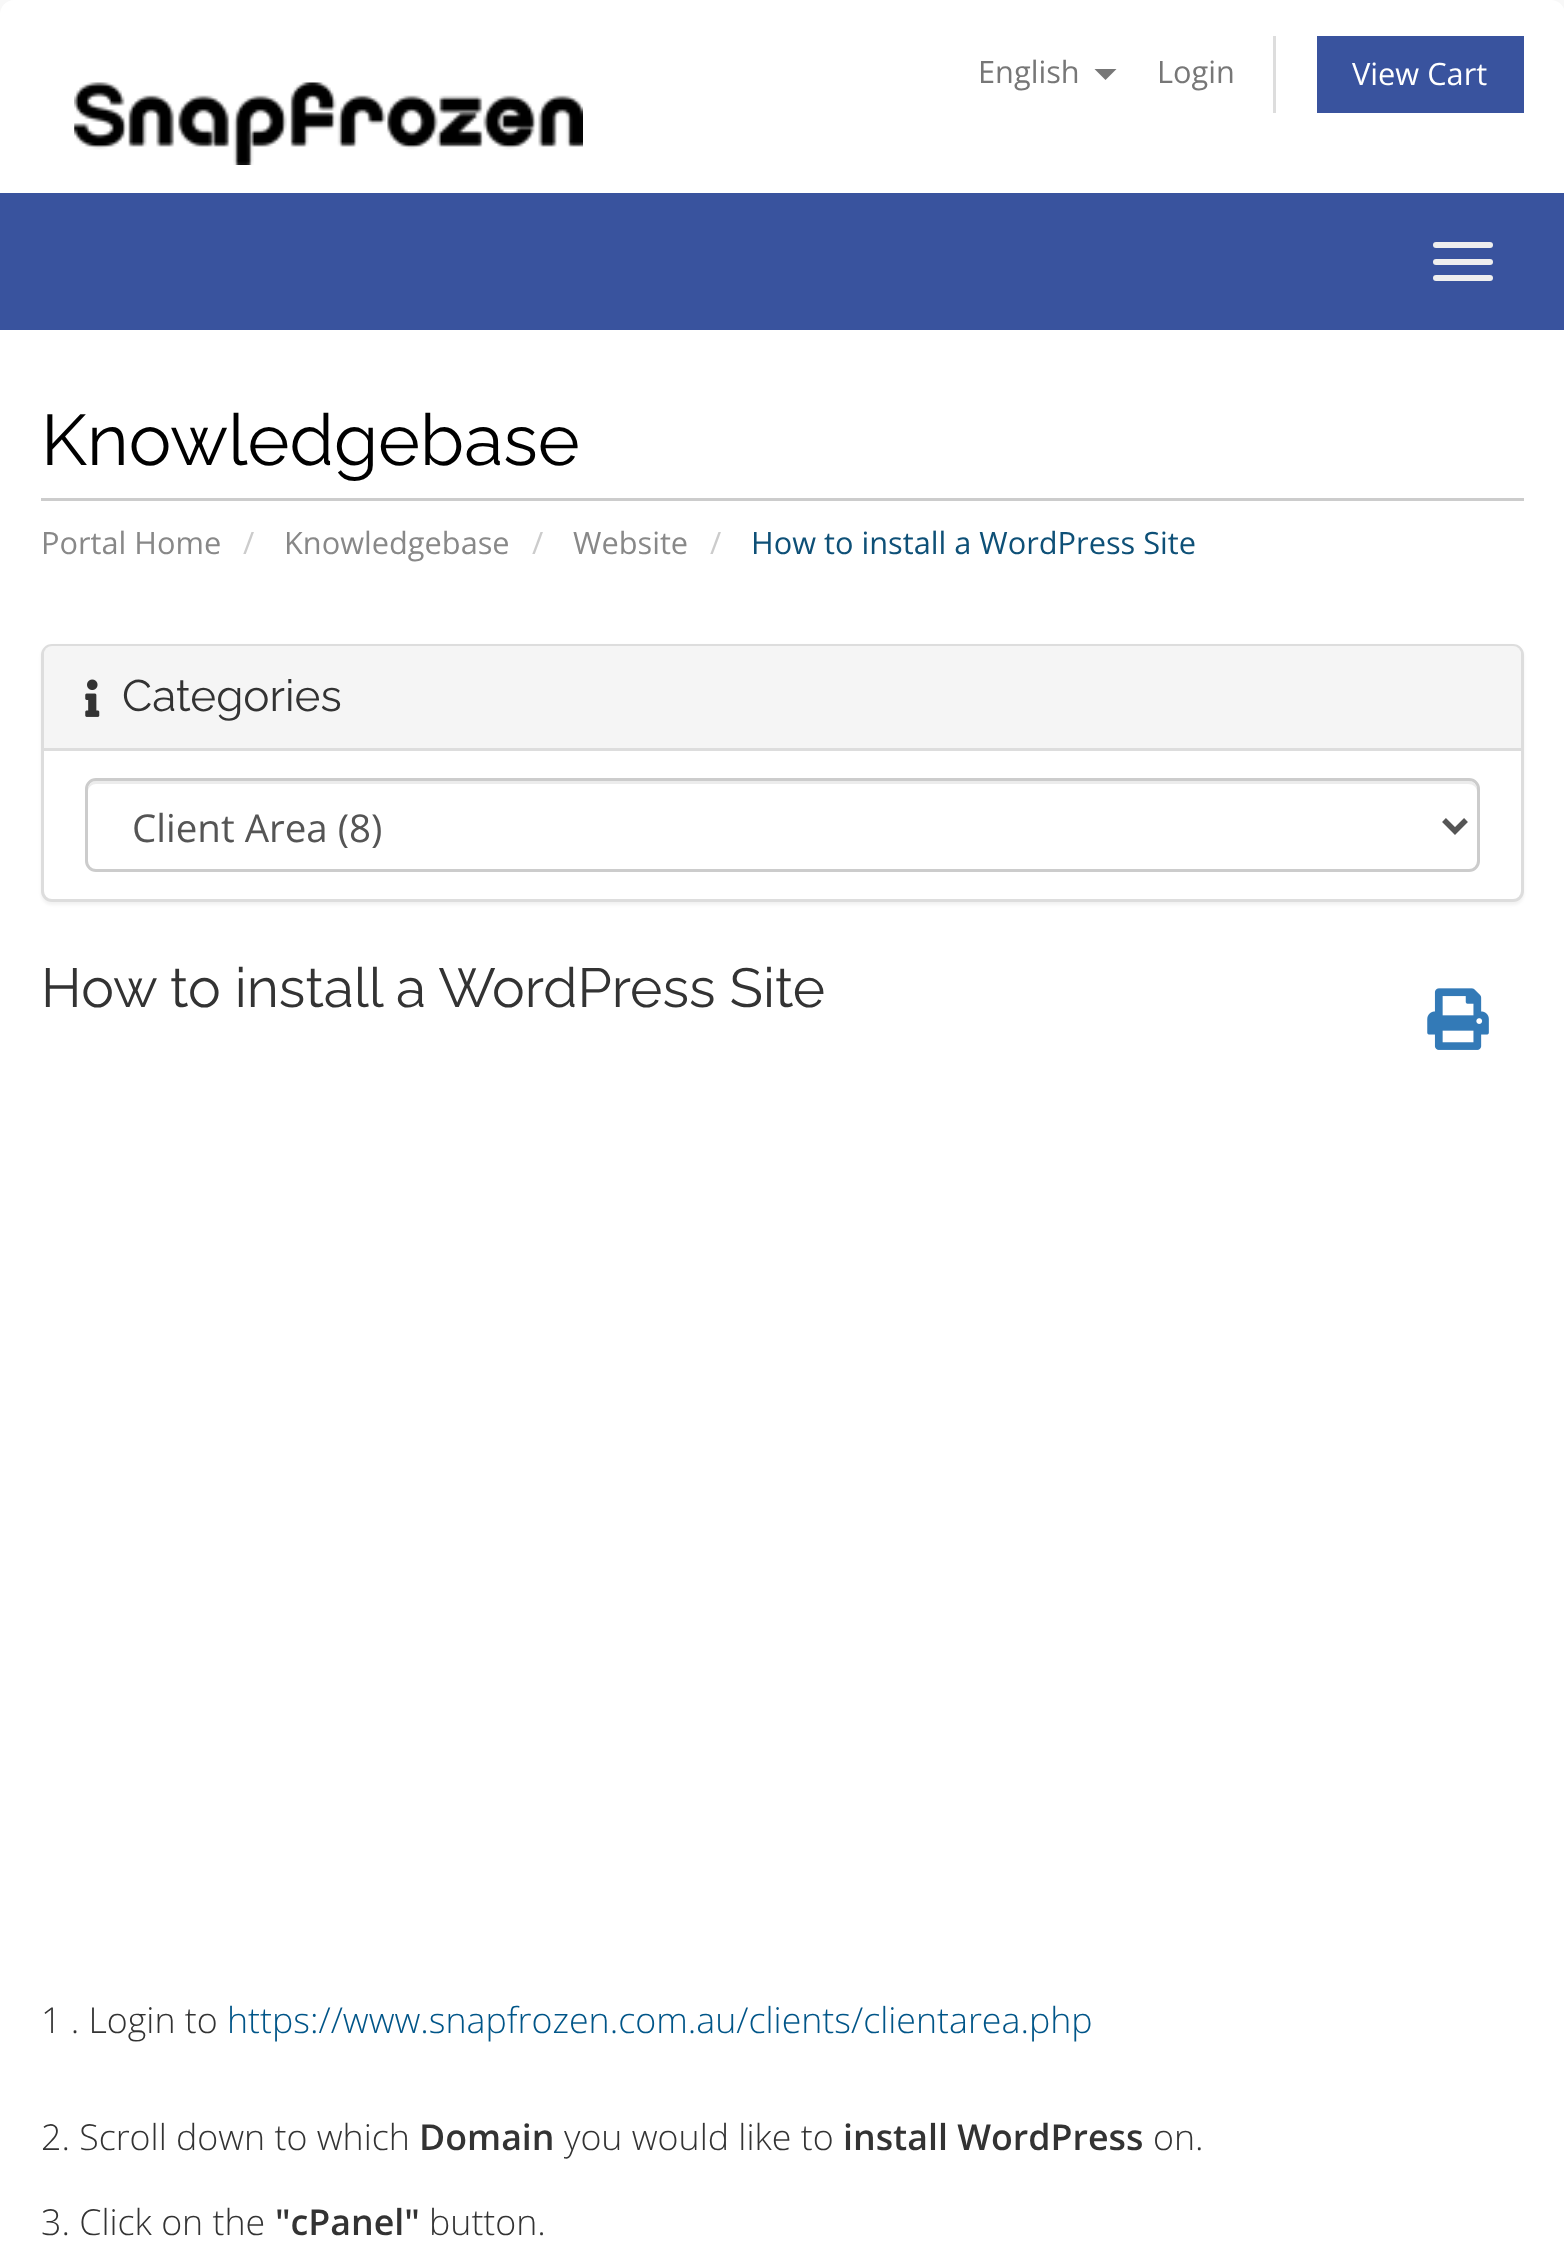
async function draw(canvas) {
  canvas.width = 1564;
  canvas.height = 2258;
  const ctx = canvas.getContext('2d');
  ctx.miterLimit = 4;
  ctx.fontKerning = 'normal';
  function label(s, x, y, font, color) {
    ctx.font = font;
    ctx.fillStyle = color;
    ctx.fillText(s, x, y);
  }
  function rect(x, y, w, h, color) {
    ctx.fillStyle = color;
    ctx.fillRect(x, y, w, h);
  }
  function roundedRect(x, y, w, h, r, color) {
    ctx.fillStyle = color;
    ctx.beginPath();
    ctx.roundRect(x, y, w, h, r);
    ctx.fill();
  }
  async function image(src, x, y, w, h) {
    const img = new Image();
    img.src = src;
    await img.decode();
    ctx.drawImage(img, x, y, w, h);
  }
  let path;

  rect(0, 0, 1564, 2258, '#f8f8f8');
  ctx.fillStyle = '#fff';
  path = new Path2D('M14 0H1551C1558.5 0 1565 6.5 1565 14V193H0V14C0 6.5 6.5 0 14 0Z');
  ctx.fill(path);
  label('English', 978, 83, '30.75px Open Sans', '#777');
  path = new Path2D('M1094.5 69H1116.5L1105.5 80Z');
  ctx.fill(path);
  label('Login', 1157, 83, '30.75px Open Sans', '#777');
  rect(1273, 36, 3, 77, '#ddd');
  rect(1317, 36, 207, 77, '#39539e');
  label('View Cart', 1352, 85, '30.75px Open Sans', '#fff');
  await image('assets/img1.png', 74, 82, 509, 83);
  rect(0, 193, 1564, 137, '#39539e');
  roundedRect(1433, 242, 60, 6, 3, '#eee');
  roundedRect(1433, 259, 60, 6, 3, '#eee');
  roundedRect(1433, 275, 60, 6, 3, '#eee');
  rect(0, 330, 1564, 1928, '#fff');
  rect(41, 498, 1483, 3, '#ccc');
  label('Knowledgebase', 41, 465, '71.5px Raleway', '#000');
  label('Portal Home', 41, 554, '30.75px Open Sans', '#888');
  label('/', 243, 554, '30.75px Open Sans', '#ccc');
  label('Knowledgebase', 284, 554, '30.75px Open Sans', '#888');
  label('/', 532, 554, '30.75px Open Sans', '#ccc');
  label('Website', 573, 554, '30.75px Open Sans', '#888');
  label('/', 710, 554, '30.75px Open Sans', '#ccc');
  label('How to install a WordPress Site', 751, 554, '30.75px Open Sans', '#0e5077');
  ctx.fillStyle = '#0000000d';
  ctx.filter = 'blur(1.5px)';
  ctx.beginPath();
  ctx.roundRect(41, 646, 1483, 259, 11);
  ctx.fill();
  ctx.filter = 'none';
  ctx.fillStyle = '#fff';
  ctx.beginPath();
  ctx.roundRect(42.5, 645.5, 1480, 255, 9.5);
  ctx.fill();
  ctx.strokeStyle = '#ddd';
  ctx.lineWidth = 3;
  ctx.stroke();
  ctx.fillStyle = '#f5f5f5';
  ctx.beginPath();
  ctx.roundRect(44, 646, 1477, 105, [8, 8, 0, 0]);
  ctx.fill();
  rect(44, 748, 1477, 3, '#ddd');
  await image('assets/img2.png', 85, 679, 15, 38);
  label('Categories', 122, 711, '44px Raleway', '#333');
  ctx.fillStyle = '#ececec';
  path = new Path2D('M96 784H1468C1473 784 1477 787 1477 792V789C1477 785 1473 781 1469 781H96C92 781 88 785 88 789V792C88 787 92 784 96 784Z');
  ctx.fill(path);
  ctx.beginPath();
  ctx.roundRect(86.5, 779.5, 1392, 91, 9.5);
  ctx.strokeStyle = '#ccc';
  ctx.stroke();
  path = new Path2D('M1444 820L1455 831L1466 820');
  ctx.strokeStyle = '#555';
  ctx.lineWidth = 5.5;
  ctx.stroke(path);
  label('Client Area (8)', 132, 842, '38.5px Open Sans', '#555');
  label('How to install a WordPress Site', 41, 1007, '55px Raleway', '#333');
  await image('assets/img3.png', 1427, 988, 62, 62);
  label('1 . Login to', 41, 2033, '300 35.75px Open Sans', '#333');
  label('https://www.snapfrozen.com.au/clients/clientarea.php', 227, 2033, '300 35.75px Open Sans', '#058');
  label('2. Scroll down to which', 41, 2150, '300 35.75px Open Sans', '#333');
  label('Domain', 419, 2150, '600 35.75px Open Sans', '#333');
  label('you would like to', 564, 2150, '300 35.75px Open Sans', '#333');
  label('install WordPress', 843, 2150, '600 35.75px Open Sans', '#333');
  label('on.', 1153, 2150, '300 35.75px Open Sans', '#333');
  label('3. Click on the', 41, 2235, '300 35.75px Open Sans', '#333');
  label('"cPanel"', 275, 2235, '600 35.75px Open Sans', '#333');
  label('button.', 429, 2235, '300 35.75px Open Sans', '#333');
}

draw(document.querySelector('canvas'));
